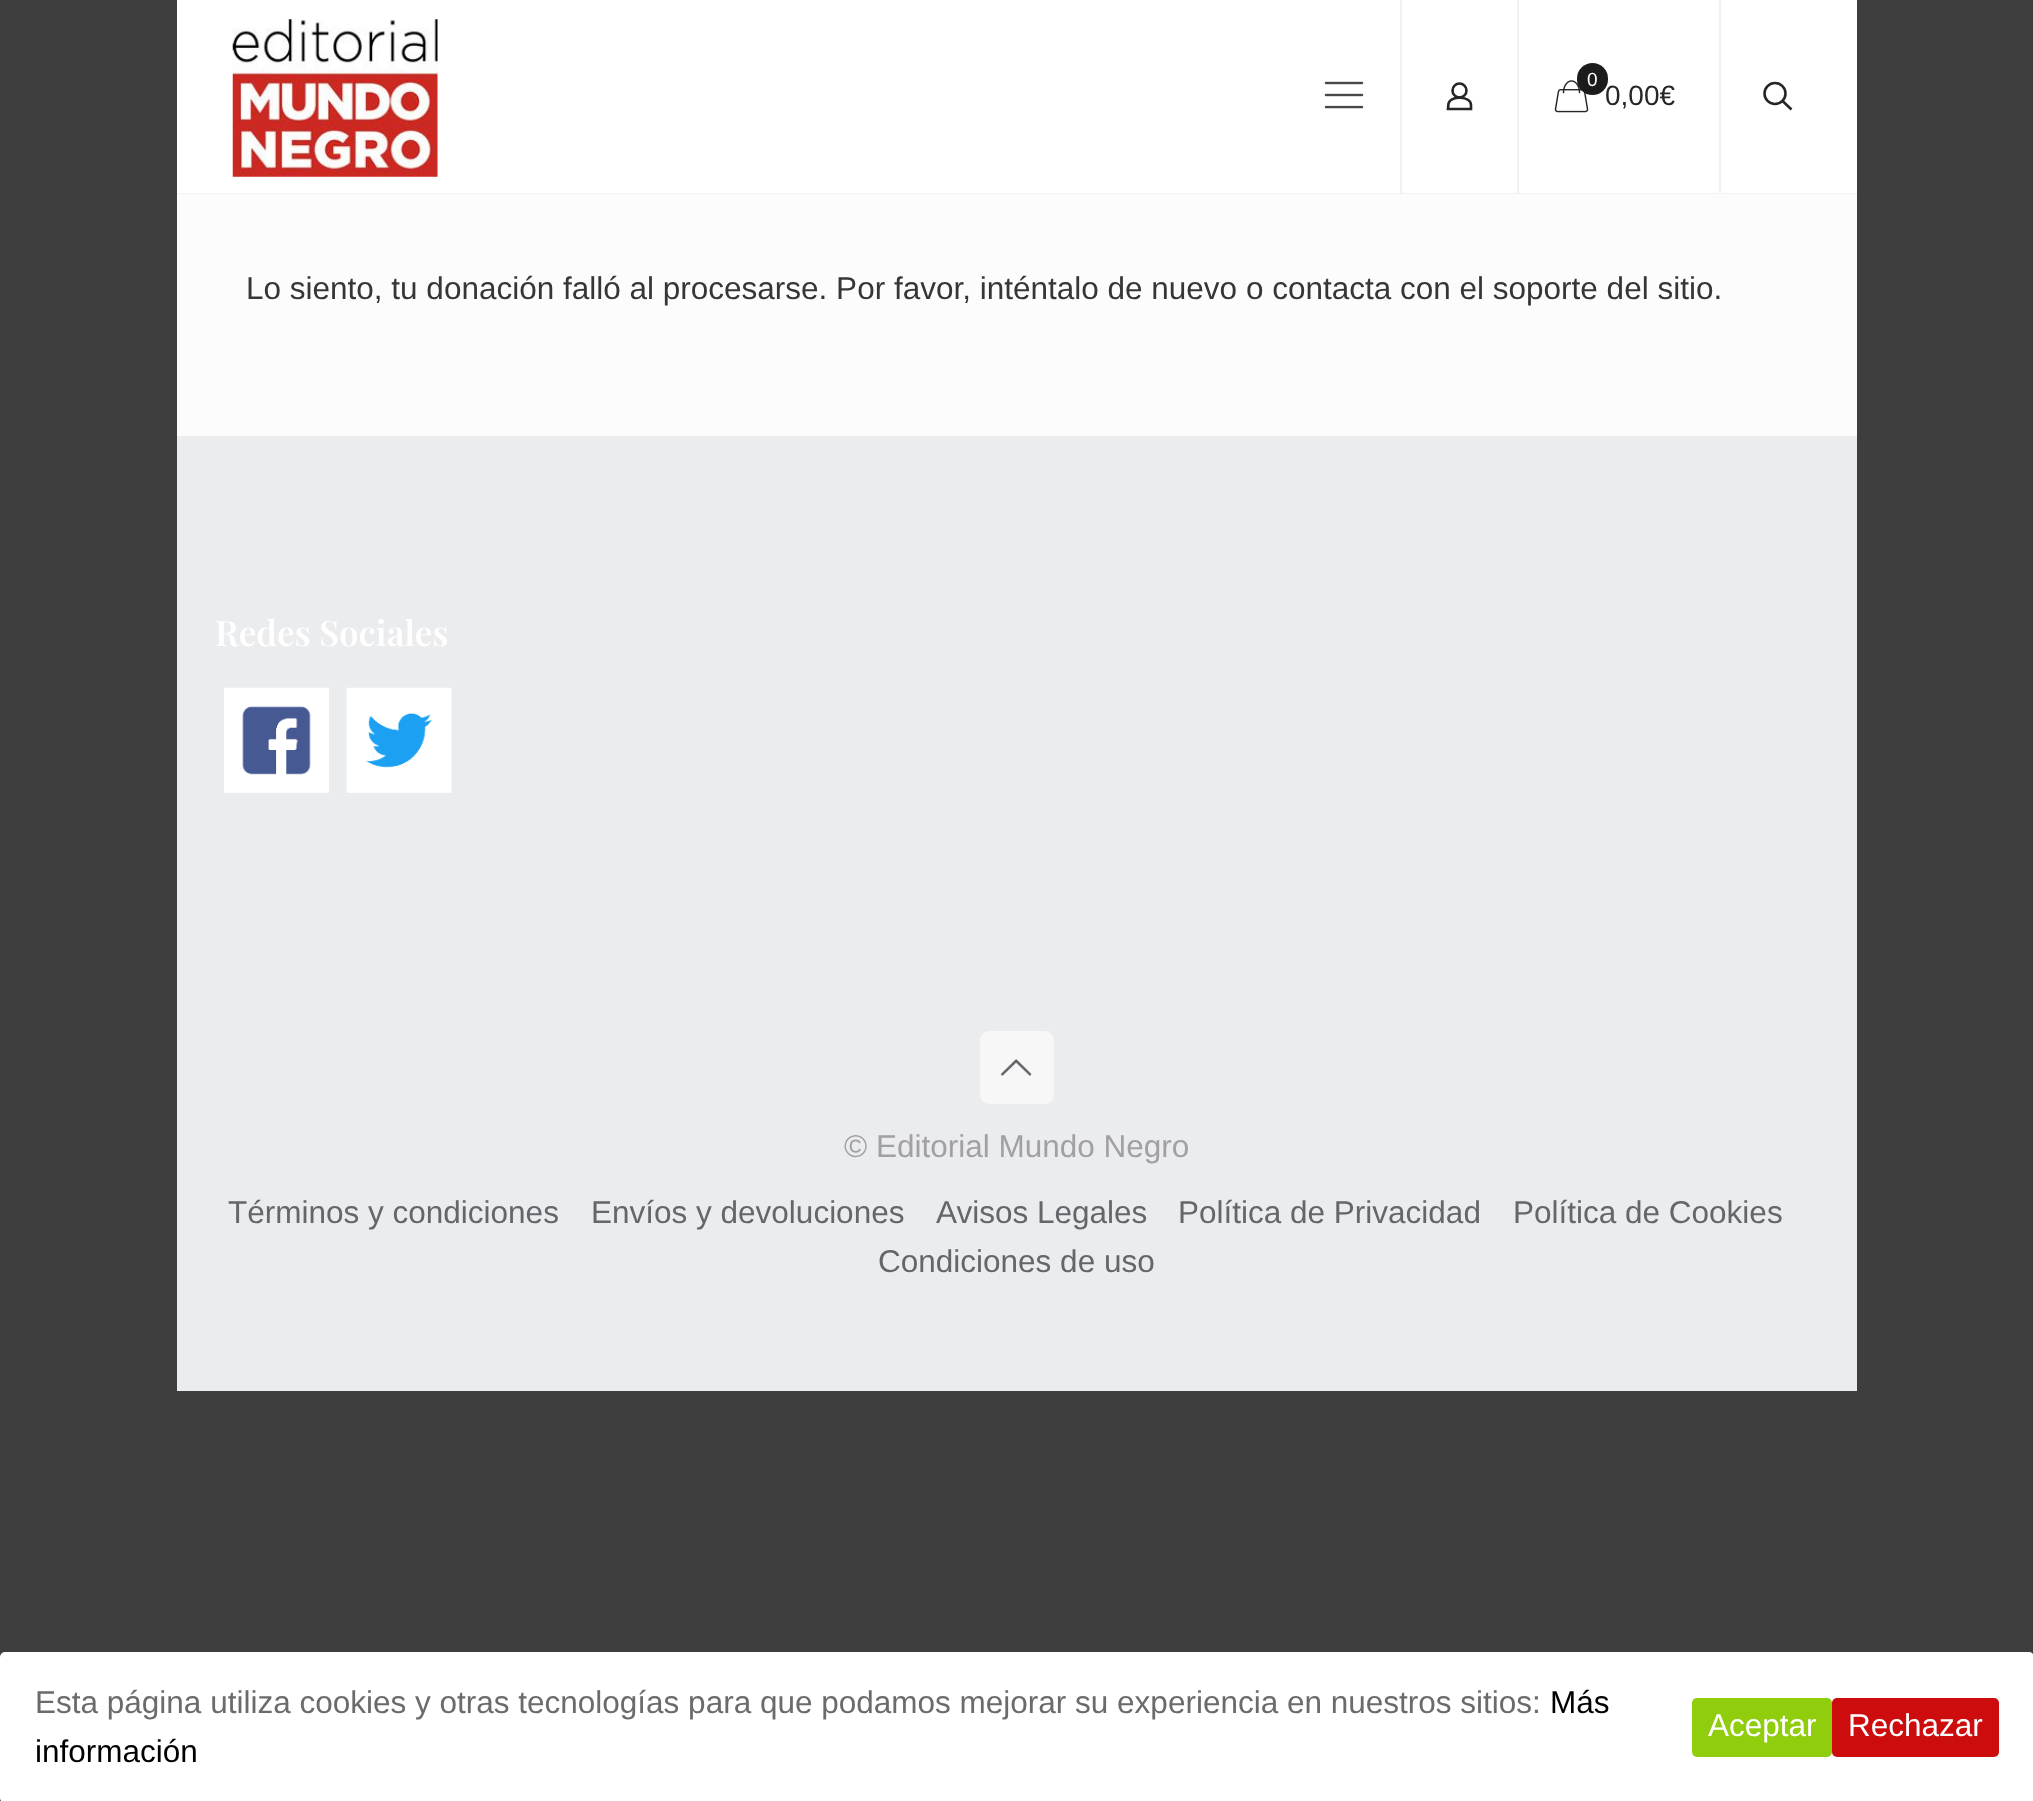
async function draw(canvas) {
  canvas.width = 2033;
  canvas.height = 1801;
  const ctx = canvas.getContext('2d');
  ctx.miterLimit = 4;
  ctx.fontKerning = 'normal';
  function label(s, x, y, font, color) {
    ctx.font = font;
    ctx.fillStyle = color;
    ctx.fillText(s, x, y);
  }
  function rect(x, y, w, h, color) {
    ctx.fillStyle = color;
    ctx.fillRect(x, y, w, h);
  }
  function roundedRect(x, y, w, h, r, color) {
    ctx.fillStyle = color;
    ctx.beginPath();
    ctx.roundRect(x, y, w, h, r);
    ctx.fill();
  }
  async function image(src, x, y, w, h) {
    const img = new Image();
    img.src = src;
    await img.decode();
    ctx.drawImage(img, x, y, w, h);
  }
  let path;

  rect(0, 0, 2033, 1801, '#3e3e3e');
  rect(177, 0, 1680, 193, '#fff');
  rect(177, 193, 1680, 1, '#f2f2f2');
  await image('assets/img1.png', 232, 19, 206, 158);
  await image('assets/img2.png', 1324, 81, 40, 28);
  rect(1400, 0, 2, 193, '#f2f2f2');
  ctx.beginPath();
  ctx.arc(1459.5, 90.5, 7, 0, 2 * Math.PI);
  ctx.strokeStyle = '#262626';
  ctx.lineWidth = 2.6;
  ctx.stroke();
  path = new Path2D('M1471 105V109H1448L1448.5 103.5C1451 95 1471 96 1471 105Z');
  ctx.stroke(path);
  rect(1517, 0, 2, 193, '#f2f2f2');
  await image('assets/img3.png', 1554, 80, 35, 33);
  label('0,00€', 1605, 105, '28px Liberation Sans', '#262626');
  roundedRect(1577, 63, 31, 32, 15.5, '#1c1c1c');
  label('0', 1587, 86, '19px Liberation Sans', '#fff');
  rect(1719, 0, 2, 193, '#f2f2f2');
  ctx.beginPath();
  ctx.arc(1775, 93.5, 10.5, 0, 2 * Math.PI);
  ctx.stroke();
  path = new Path2D('M1782.5 101L1791.5 109.5');
  ctx.stroke(path);
  rect(177, 194, 1680, 242, '#fcfcfc');
  label('Lo siento, tu donación falló al procesarse. Por favor, inténtalo de nuevo o contacta con el soporte del sitio.', 246, 299, '31.5px Liberation Sans', '#363636');
  rect(177, 436, 1680, 955, '#ebecee');
  label('Redes Sociales', 215, 646, '600 35px Playfair Display', '#fff');
  await image('assets/img4.png', 224, 687, 105, 106);
  await image('assets/img5.png', 346, 687, 106, 106);
  roundedRect(980, 1031, 74, 73, 9, '#f7f7f7');
  await image('assets/img6.png', 1001, 1059, 31, 17);
  label('© Editorial Mundo Negro', 844, 1157, '31.5px Liberation Sans', '#a1a0a4');
  label('Términos y condiciones', 228, 1223, '31.5px Liberation Sans', '#65666c');
  label('Envíos y devoluciones', 591, 1223, '31.5px Liberation Sans', '#65666c');
  label('Avisos Legales', 936, 1223, '31.5px Liberation Sans', '#65666c');
  label('Política de Privacidad', 1178, 1223, '31.5px Liberation Sans', '#65666c');
  label('Política de Cookies', 1513, 1223, '31.5px Liberation Sans', '#65666c');
  label('Condiciones de uso', 878, 1272, '31.5px Liberation Sans', '#65666c');
  roundedRect(0, 1652, 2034, 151, 5, '#fff');
  label('Esta página utiliza cookies y otras tecnologías para que podamos mejorar su experiencia en nuestros sitios:', 35, 1713, '31.5px Liberation Sans', '#6b6b6b');
  label('Más', 1550, 1713, '31.5px Liberation Sans', '#000');
  label('información', 35, 1762, '31.5px Liberation Sans', '#000');
  roundedRect(1692, 1698, 140, 59, 5, '#90cd0d');
  label('Aceptar', 1708, 1736, '31.5px Liberation Sans', '#fff');
  roundedRect(1832, 1698, 167, 59, 5, '#cd0d0d');
  label('Rechazar', 1848, 1736, '31.5px Liberation Sans', '#fff');
}

draw(document.querySelector('canvas'));
